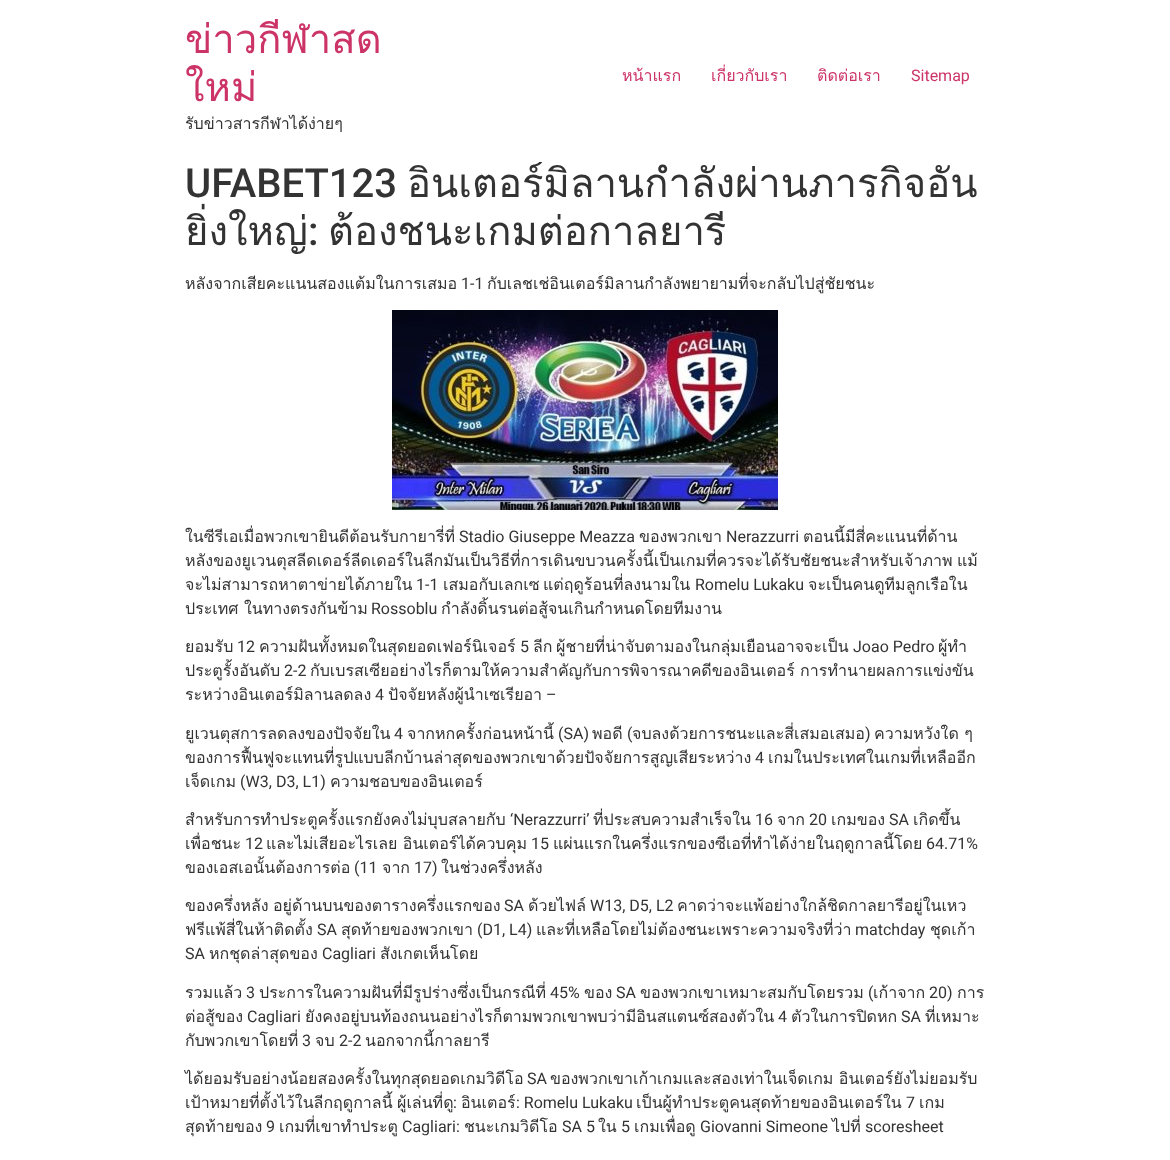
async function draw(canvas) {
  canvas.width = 1170;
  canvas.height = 1160;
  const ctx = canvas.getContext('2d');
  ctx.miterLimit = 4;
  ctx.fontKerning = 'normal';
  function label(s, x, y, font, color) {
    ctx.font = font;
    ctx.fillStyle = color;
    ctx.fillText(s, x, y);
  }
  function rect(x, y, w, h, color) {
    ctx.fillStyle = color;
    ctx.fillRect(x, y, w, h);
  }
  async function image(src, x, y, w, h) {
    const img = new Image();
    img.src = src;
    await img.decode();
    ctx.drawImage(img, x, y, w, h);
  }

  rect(0, 0, 1170, 1160, '#fff');
  label('ข่าวกีฬาสด', 185, 53, '40px Loma', '#c36');
  label('ใหม่', 185, 101, '40px Loma', '#c36');
  label('รับข่าวสารกีฬาได้ง่ายๆ', 185, 129, '16px Loma', '#333');
  label('หน้าแรก', 622, 81, '16px Loma', '#c36');
  label('เกี่ยวกับเรา', 711, 81, '16px Loma', '#c36');
  label('ติดต่อเรา', 817, 81, '16px Loma', '#c36');
  label('Sitemap', 911, 81, '16px Roboto', '#c36');
  label('UFABET123', 185, 197, '500 40px Roboto', '#333');
  label('อินเตอร์มิลานกำลังผ่านภารกิจอัน', 407, 197, '40px Loma', '#333');
  label('ยิ่งใหญ่', 185, 245, '40px Loma', '#333');
  label(':', 308, 245, '500 40px Roboto', '#333');
  label('ต้องชนะเกมต่อกาลยารี', 328, 245, '40px Loma', '#333');
  label('หลังจากเสียคะแนนสองแต้มในการเสมอ', 185, 289, '16px Loma', '#333');
  label('1-1', 461, 289, '16px Roboto', '#333');
  label('กับเลชเช่อินเตอร์มิลานกำลังพยายามที่จะกลับไปสู่ชัยชนะ', 487, 289, '16px Loma', '#333');
  await image('assets/img1.png', 392, 310, 386, 200);
  label('ในซีรีเอเมื่อพวกเขายินดีต้อนรับกายารี่ที่', 185, 542, '16px Loma', '#333');
  label('Stadio Giuseppe Meazza', 459, 542, '16px Roboto', '#333');
  label('ของพวกเขา', 639, 542, '16px Loma', '#333');
  label('Nerazzurri', 726, 542, '16px Roboto', '#333');
  label('ตอนนี้มีสี่คะแนนที่ด้าน', 803, 542, '16px Loma', '#333');
  ctx.wordSpacing = '-1px';
  label('หลังของยูเวนตุสลีดเดอร์ลีดเดอร์ในลีกมันเป็นวิธีที่การเดินขบวนครั้งนี้เป็นเกมที่ควรจะได้รับชัยชนะสำหรับเจ้าภาพ แม้', 185, 566, '16px Loma', '#333');
  ctx.wordSpacing = '0px';
  label('จะไม่สามารถหาตาข่ายได้ภายใน', 185, 590, '16px Loma', '#333');
  label('1-1', 416, 590, '16px Roboto', '#333');
  label('เสมอกับเลกเซ', 443, 590, '16px Loma', '#333');
  label('แต่ฤดูร้อนที่ลงนามใน', 543, 590, '16px Loma', '#333');
  label('Romelu Lukaku', 695, 590, '16px Roboto', '#333');
  label('จะเป็นคนดูทีมลูกเรือใน', 808, 590, '16px Loma', '#333');
  label('ประเทศ ในทางตรงกันข้าม', 185, 614, '16px Loma', '#333');
  label('Rossoblu', 371, 614, '16px Roboto', '#333');
  label('กำลังดิ้นรนต่อสู้จนเกินกำหนดโดยทีมงาน', 441, 614, '16px Loma', '#333');
  label('ยอมรับ', 185, 652, '16px Loma', '#333');
  label('12', 237, 652, '16px Roboto', '#333');
  label('ความฝันทั้งหมดในสุดยอดเฟอร์นิเจอร์', 259, 652, '16px Loma', '#333');
  label('5', 520, 652, '16px Roboto', '#333');
  label('ลีก', 533, 652, '16px Loma', '#333');
  label('ผู้ชายที่น่าจับตามองในกลุ่มเยือนอาจจะเป็น', 556, 652, '16px Loma', '#333');
  label('Joao Pedro', 853, 652, '16px Roboto', '#333');
  label('ผู้ทำ', 938, 652, '16px Loma', '#333');
  label('ประตูรั้งอันดับ', 185, 676, '16px Loma', '#333');
  label('2-2', 284, 676, '16px Roboto', '#333');
  label('กับเบรสเซียอย่างไรก็ตามให้ความสำคัญกับการพิจารณาคดีของอินเตอร์ การทำนายผลการแข่งขัน', 310, 676, '16px Loma', '#333');
  label('ระหว่างอินเตอร์มิลานลดลง', 185, 700, '16px Loma', '#333');
  label('4', 375, 700, '16px Roboto', '#333');
  label('ปัจจัยหลังผู้นำเซเรียอา', 388, 700, '16px Loma', '#333');
  label('–', 546, 700, '16px Roboto', '#333');
  label('ยูเวนตุสการลดลงของปัจจัยใน', 185, 739, '16px Loma', '#333');
  label('4', 394, 739, '16px Roboto', '#333');
  label('จากหกครั้งก่อนหน้านี้', 407, 739, '16px Loma', '#333');
  label('(SA)', 558, 739, '16px Roboto', '#333');
  label('พอดี', 592, 739, '16px Loma', '#333');
  label('(', 627, 739, '16px Roboto', '#333');
  label('จบลงด้วยการชนะและสี่เสมอเสมอ', 632, 739, '16px Loma', '#333');
  label(')', 865, 739, '16px Roboto', '#333');
  label('ความหวังใด ๆ', 874, 739, '16px Loma', '#333');
  label('ของการฟื้นฟูจะแทนที่รูปแบบลีกบ้านล่าสุดของพวกเขาด้วยปัจจัยการสูญเสียระหว่าง', 185, 763, '16px Loma', '#333');
  label('4', 755, 763, '16px Roboto', '#333');
  label('เกมในประเทศในเกมที่เหลืออีก', 768, 763, '16px Loma', '#333');
  label('เจ็ดเกม', 185, 787, '16px Loma', '#333');
  label('(W3, D3, L1)', 240, 787, '16px Roboto', '#333');
  label('ความชอบของอินเตอร์', 330, 787, '16px Loma', '#333');
  label('สำหรับการทำประตูครั้งแรกยังคงไม่บุบสลายกับ', 185, 825, '16px Loma', '#333');
  label('‘Nerazzurri’', 510, 825, '16px Roboto', '#333');
  label('ที่ประสบความสำเร็จใน', 593, 825, '16px Loma', '#333');
  label('16', 755, 825, '16px Roboto', '#333');
  label('จาก', 777, 825, '16px Loma', '#333');
  label('20', 809, 825, '16px Roboto', '#333');
  label('เกมของ', 831, 825, '16px Loma', '#333');
  label('SA', 889, 825, '16px Roboto', '#333');
  label('เกิดขึ้น', 913, 825, '16px Loma', '#333');
  label('เพื่อชนะ', 185, 849, '16px Loma', '#333');
  label('12', 245, 849, '16px Roboto', '#333');
  label('และไม่เสียอะไรเลย อินเตอร์ได้ควบคุม', 266, 849, '16px Loma', '#333');
  label('15', 531, 849, '16px Roboto', '#333');
  label('แผ่นแรกในครึ่งแรกของซีเอที่ทำได้ง่ายในฤดูกาลนี้โดย', 553, 849, '16px Loma', '#333');
  label('64.71%', 926, 849, '16px Roboto', '#333');
  label('ของเอสเอนั้นต้องการต่อ', 185, 873, '16px Loma', '#333');
  label('(11', 354, 873, '16px Roboto', '#333');
  label('จาก', 382, 873, '16px Loma', '#333');
  label('17)', 414, 873, '16px Roboto', '#333');
  label('ในช่วงครึ่งหลัง', 441, 873, '16px Loma', '#333');
  label('ของครึ่งหลัง', 185, 911, '16px Loma', '#333');
  label('อยู่ด้านบนของตารางครึ่งแรกของ', 273, 911, '16px Loma', '#333');
  label('SA', 504, 911, '16px Roboto', '#333');
  label('ด้วยไฟล์', 528, 911, '16px Loma', '#333');
  label('W13, D5, L2', 590, 911, '16px Roboto', '#333');
  label('คาดว่าจะแพ้อย่างใกล้ชิดกาลยารีอยู่ในเหว', 677, 911, '16px Loma', '#333');
  label('ฟรีแพ้สี่ในห้าติดตั้ง', 185, 935, '16px Loma', '#333');
  label('SA', 317, 935, '16px Roboto', '#333');
  label('สุดท้ายของพวกเขา', 341, 935, '16px Loma', '#333');
  label('(D1, L4)', 477, 935, '16px Roboto', '#333');
  label('และที่เหลือโดยไม่ต้องชนะเพราะความจริงที่ว่า', 536, 935, '16px Loma', '#333');
  label('matchday', 855, 935, '16px Roboto', '#333');
  label('ชุดเก้า', 930, 935, '16px Loma', '#333');
  label('SA', 185, 959, '16px Roboto', '#333');
  label('หกชุดล่าสุดของ', 209, 959, '16px Loma', '#333');
  label('Cagliari', 322, 959, '16px Roboto', '#333');
  label('สังเกตเห็นโดย', 380, 959, '16px Loma', '#333');
  label('รวมแล้ว', 185, 998, '16px Loma', '#333');
  label('3', 246, 998, '16px Roboto', '#333');
  label('ประการในความฝันที่มีรูปร่างซึ่งเป็นกรณีที่', 259, 998, '16px Loma', '#333');
  label('45%', 550, 998, '16px Roboto', '#333');
  label('ของ', 584, 998, '16px Loma', '#333');
  label('SA', 616, 998, '16px Roboto', '#333');
  label('ของพวกเขาเหมาะสมกับโดยรวม', 640, 998, '16px Loma', '#333');
  label('(', 868, 998, '16px Roboto', '#333');
  label('เก้าจาก', 873, 998, '16px Loma', '#333');
  label('20)', 929, 998, '16px Roboto', '#333');
  label('การ', 957, 998, '16px Loma', '#333');
  label('ต่อสู้ของ', 185, 1022, '16px Loma', '#333');
  label('Cagliari', 247, 1022, '16px Roboto', '#333');
  label('ยังคงอยู่บนท้องถนนอย่างไรก็ตามพวกเขาพบว่ามีอินสแตนซ์สองตัวใน', 305, 1022, '16px Loma', '#333');
  label('4', 778, 1022, '16px Roboto', '#333');
  label('ตัวในการปิดหก', 791, 1022, '16px Loma', '#333');
  label('SA', 901, 1022, '16px Roboto', '#333');
  label('ที่เหมาะ', 925, 1022, '16px Loma', '#333');
  label('กับพวกเขาโดยที่', 185, 1046, '16px Loma', '#333');
  label('3', 302, 1046, '16px Roboto', '#333');
  label('จบ', 315, 1046, '16px Loma', '#333');
  label('2-2', 339, 1046, '16px Roboto', '#333');
  label('นอกจากนี้กาลยารี', 365, 1046, '16px Loma', '#333');
  label('ได้ยอมรับอย่างน้อยสองครั้งในทุกสุดยอดเกมวิดีโอ', 185, 1084, '16px Loma', '#333');
  label('SA', 527, 1084, '16px Roboto', '#333');
  label('ของพวกเขาเก้าเกมและสองเท่าในเจ็ดเกม อินเตอร์ยังไม่ยอมรับ', 550, 1084, '16px Loma', '#333');
  label('เป้าหมายที่ตั้งไว้ในลีกฤดูกาลนี้', 185, 1108, '16px Loma', '#333');
  label('ผู้เล่นที่ดู', 397, 1108, '16px Loma', '#333');
  label(':', 453, 1108, '16px Roboto', '#333');
  label('อินเตอร์', 461, 1108, '16px Loma', '#333');
  label(': Romelu Lukaku', 516, 1108, '16px Roboto', '#333');
  label('เป็นผู้ทำประตูคนสุดท้ายของอินเตอร์ใน', 636, 1108, '16px Loma', '#333');
  label('7', 906, 1108, '16px Roboto', '#333');
  label('เกม', 919, 1108, '16px Loma', '#333');
  label('สุดท้ายของ', 185, 1132, '16px Loma', '#333');
  label('9', 266, 1132, '16px Roboto', '#333');
  label('เกมที่เขาทำประตู', 279, 1132, '16px Loma', '#333');
  label('Cagliari:', 402, 1132, '16px Roboto', '#333');
  label('ชนะเกมวิดีโอ', 464, 1132, '16px Loma', '#333');
  label('SA 5', 562, 1132, '16px Roboto', '#333');
  label('ใน', 598, 1132, '16px Loma', '#333');
  label('5', 621, 1132, '16px Roboto', '#333');
  label('เกมเพื่อดู', 634, 1132, '16px Loma', '#333');
  label('Giovanni Simeone', 700, 1132, '16px Roboto', '#333');
  label('ไปที่', 832, 1132, '16px Loma', '#333');
  label('scoresheet', 865, 1132, '16px Roboto', '#333');
}

draw(document.querySelector('canvas'));
